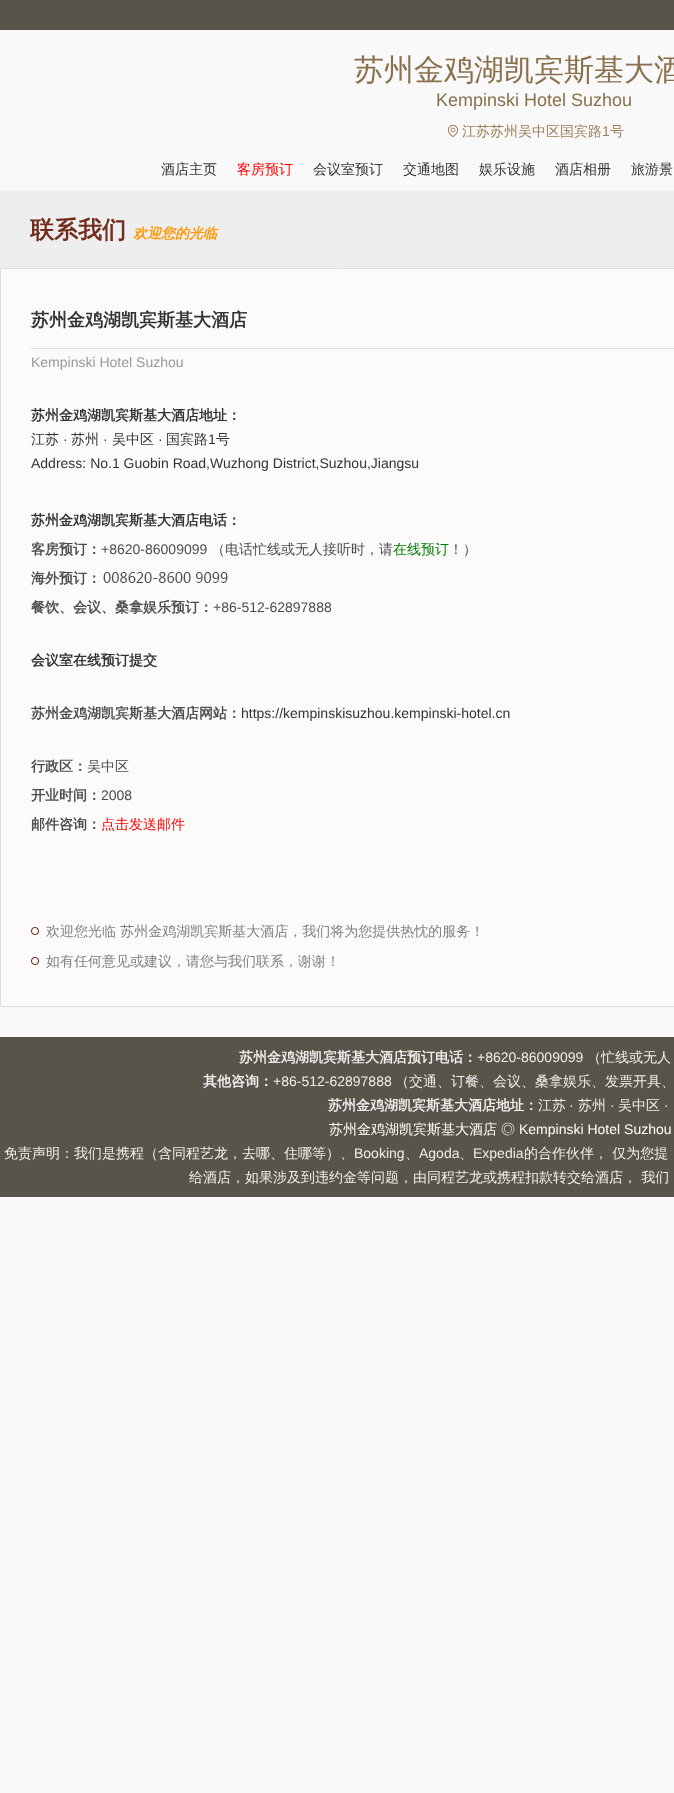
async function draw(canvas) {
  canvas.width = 674;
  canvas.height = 1793;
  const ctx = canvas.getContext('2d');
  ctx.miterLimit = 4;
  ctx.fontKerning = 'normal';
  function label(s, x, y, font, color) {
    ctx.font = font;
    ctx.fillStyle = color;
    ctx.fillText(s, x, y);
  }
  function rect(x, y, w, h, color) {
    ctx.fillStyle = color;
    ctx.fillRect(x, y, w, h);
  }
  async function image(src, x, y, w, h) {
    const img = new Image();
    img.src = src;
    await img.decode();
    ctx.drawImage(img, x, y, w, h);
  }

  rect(0, 0, 674, 1793, '#f9f9f9');
  rect(0, 0, 674, 30, '#585449');
  label('苏州金鸡湖凯宾斯基大酒', 354, 80, '500 30px WenQuanYi Zen Hei', '#8a704c');
  label('Kempinski Hotel Suzhou', 436, 106, '18px Liberation Sans', '#8a704c');
  await image('assets/img1.png', 447, 124, 12, 13);
  label('江苏苏州吴中区国宾路', 462, 136, '500 14px WenQuanYi Zen Hei', '#9b7d57');
  label('1', 602, 136, '14px Liberation Sans', '#9b7d57');
  label('号', 610, 136, '500 14px WenQuanYi Zen Hei', '#9b7d57');
  label('酒店主页', 161, 174, '500 14px WenQuanYi Zen Hei', '#333');
  label('客房预订', 237, 174, '500 14px WenQuanYi Zen Hei', '#f00');
  label('会议室预订', 313, 174, '500 14px WenQuanYi Zen Hei', '#333');
  label('交通地图', 403, 174, '500 14px WenQuanYi Zen Hei', '#333');
  label('娱乐设施', 479, 174, '500 14px WenQuanYi Zen Hei', '#333');
  label('酒店相册', 555, 174, '500 14px WenQuanYi Zen Hei', '#333');
  label('旅游景', 631, 174, '500 14px WenQuanYi Zen Hei', '#333');
  rect(0, 191, 674, 77, '#eee');
  label('联系我们', 30, 238, 'bold 24px WenQuanYi Zen Hei', '#732b1d');
  label('欢迎您的光临', 133, 238, 'italic bold 14px WenQuanYi Zen Hei', '#ff9600');
  ctx.fillStyle = '#fcfafa';
  ctx.beginPath();
  ctx.rect(0.5, 268.5, 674, 738);
  ctx.fill();
  ctx.strokeStyle = '#dcdcdc';
  ctx.stroke();
  rect(31, 348, 643, 1, '#dcdcdc');
  label('苏州金鸡湖凯宾斯基大酒店', 31, 326, 'bold 18px WenQuanYi Zen Hei', '#333');
  label('Kempinski Hotel Suzhou', 31, 367, '14px Liberation Sans', '#999');
  label('苏州金鸡湖凯宾斯基大酒店地址：', 31, 420, 'bold 14px WenQuanYi Zen Hei', '#333');
  label('江苏', 31, 444, '500 14px WenQuanYi Zen Hei', '#333');
  label('·', 63, 444, '14px Liberation Sans', '#333');
  label('苏州', 71, 444, '500 14px WenQuanYi Zen Hei', '#333');
  label('·', 103, 444, '14px Liberation Sans', '#333');
  label('吴中区', 112, 444, '500 14px WenQuanYi Zen Hei', '#333');
  label('·', 158, 444, '14px Liberation Sans', '#333');
  label('国宾路', 166, 444, '500 14px WenQuanYi Zen Hei', '#333');
  label('1', 208, 444, '14px Liberation Sans', '#333');
  label('号', 216, 444, '500 14px WenQuanYi Zen Hei', '#333');
  label('Address: No.1 Guobin Road,Wuzhong District,Suzhou,Jiangsu', 31, 468, '14px Liberation Sans', '#333');
  label('苏州金鸡湖凯宾斯基大酒店电话：', 31, 525, 'bold 14px WenQuanYi Zen Hei', '#333');
  label('客房预订：', 31, 554, 'bold 14px WenQuanYi Zen Hei', '#4c4c4c');
  label('+8620-86009099', 101, 554, '14px Liberation Sans', '#4c4c4c');
  label('（电话忙线或无人接听时，请', 211, 554, '500 14px WenQuanYi Zen Hei', '#4c4c4c');
  label('在线预订', 393, 554, '500 14px WenQuanYi Zen Hei', '#008000');
  label('！）', 449, 554, '500 14px WenQuanYi Zen Hei', '#4c4c4c');
  label('海外预订：', 31, 583, 'bold 14px WenQuanYi Zen Hei', '#4c4c4c');
  await image('assets/img2.png', 102, 566, 126, 23);
  label('餐饮、会议、桑拿娱乐预订：', 31, 612, 'bold 14px WenQuanYi Zen Hei', '#4c4c4c');
  label('+86-512-62897888', 213, 612, '14px Liberation Sans', '#4c4c4c');
  label('会议室在线预订提交', 31, 665, 'bold 14px WenQuanYi Zen Hei', '#333');
  label('苏州金鸡湖凯宾斯基大酒店网站：', 31, 718, 'bold 14px WenQuanYi Zen Hei', '#4c4c4c');
  label('https://kempinskisuzhou.kempinski-hotel.cn', 241, 718, '14px Liberation Sans', '#333');
  label('行政区：', 31, 771, 'bold 14px WenQuanYi Zen Hei', '#4c4c4c');
  label('吴中区', 87, 771, '500 14px WenQuanYi Zen Hei', '#4c4c4c');
  label('开业时间：', 31, 800, 'bold 14px WenQuanYi Zen Hei', '#4c4c4c');
  label('2008', 101, 800, '14px Liberation Sans', '#4c4c4c');
  label('邮件咨询：', 31, 829, 'bold 14px WenQuanYi Zen Hei', '#4c4c4c');
  label('点击发送邮件', 101, 829, '500 14px WenQuanYi Zen Hei', '#f00');
  await image('assets/img3.png', 31, 927, 8, 8);
  label('欢迎您光临 苏州金鸡湖凯宾斯基大酒店，我们将为您提供热忱的服务！', 46, 936, '500 14px WenQuanYi Zen Hei', '#808080');
  await image('assets/img3.png', 31, 957, 8, 8);
  label('如有任何意见或建议，请您与我们联系，谢谢！', 46, 966, '500 14px WenQuanYi Zen Hei', '#808080');
  rect(0, 1037, 674, 160, '#595449');
  label('苏州金鸡湖凯宾斯基大酒店预订电话：', 239, 1062, 'bold 14px WenQuanYi Zen Hei', '#eee');
  label('+8620-86009099', 477, 1062, '14px Liberation Sans', '#eee');
  label('（忙线或无人', 587, 1062, '500 14px WenQuanYi Zen Hei', '#eee');
  label('其他咨询：', 203, 1086, 'bold 14px WenQuanYi Zen Hei', '#eee');
  label('+86-512-62897888', 273, 1086, '14px Liberation Sans', '#eee');
  label('（交通、订餐、会议、桑拿娱乐、发票开具、', 395, 1086, '500 14px WenQuanYi Zen Hei', '#eee');
  label('苏州金鸡湖凯宾斯基大酒店地址：', 328, 1110, 'bold 14px WenQuanYi Zen Hei', '#eee');
  label('江苏', 538, 1110, '500 14px WenQuanYi Zen Hei', '#eee');
  label('·', 569, 1110, '14px Liberation Sans', '#eee');
  label('苏州', 578, 1110, '500 14px WenQuanYi Zen Hei', '#eee');
  label('·', 610, 1110, '14px Liberation Sans', '#eee');
  label('吴中区', 618, 1110, '500 14px WenQuanYi Zen Hei', '#eee');
  label('·', 664, 1110, '14px Liberation Sans', '#eee');
  label('苏州金鸡湖凯宾斯基大酒店', 329, 1134, '500 14px WenQuanYi Zen Hei', '#fff');
  label('◎', 501, 1134, '500 14px WenQuanYi Zen Hei', '#eee');
  label('Kempinski Hotel Suzhou', 519, 1134, '14px Liberation Sans', '#fff');
  label('免责声明：我们是携程（含同程艺龙，去哪、住哪等）、', 4, 1158, '500 14px WenQuanYi Zen Hei', '#eee');
  label('Booking', 354, 1158, '14px Liberation Sans', '#eee');
  label('、', 405, 1158, '500 14px WenQuanYi Zen Hei', '#eee');
  label('Agoda', 419, 1158, '14px Liberation Sans', '#eee');
  label('、', 459, 1158, '500 14px WenQuanYi Zen Hei', '#eee');
  label('Expedia', 473, 1158, '14px Liberation Sans', '#eee');
  label('的合作伙伴， 仅为您提', 524, 1158, '500 14px WenQuanYi Zen Hei', '#eee');
  label('给酒店，如果涉及到违约金等问题，由同程艺龙或携程扣款转交给酒店， 我们', 189, 1182, '500 14px WenQuanYi Zen Hei', '#eee');
}

draw(document.querySelector('canvas'));
